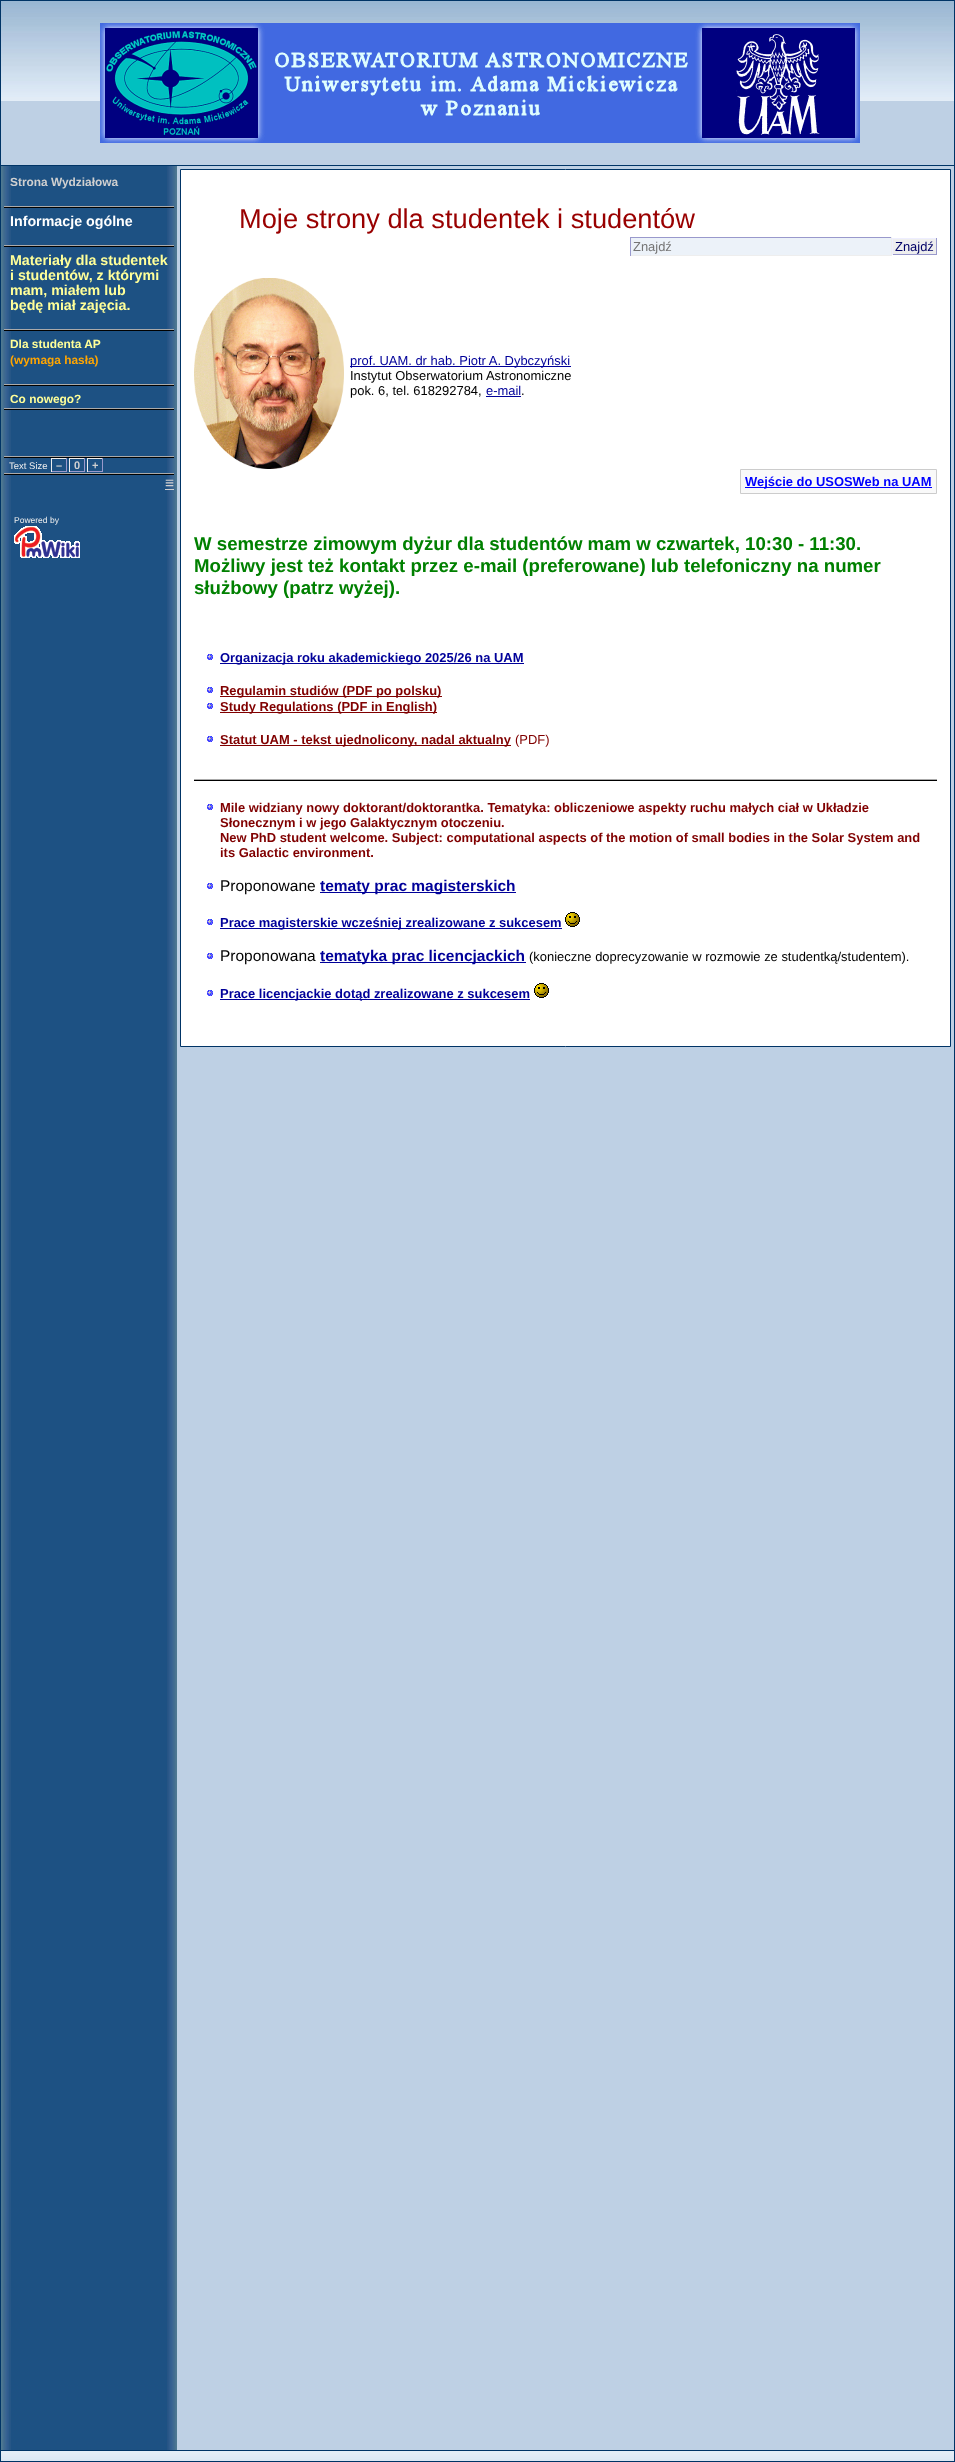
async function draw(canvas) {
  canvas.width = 955;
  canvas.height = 2462;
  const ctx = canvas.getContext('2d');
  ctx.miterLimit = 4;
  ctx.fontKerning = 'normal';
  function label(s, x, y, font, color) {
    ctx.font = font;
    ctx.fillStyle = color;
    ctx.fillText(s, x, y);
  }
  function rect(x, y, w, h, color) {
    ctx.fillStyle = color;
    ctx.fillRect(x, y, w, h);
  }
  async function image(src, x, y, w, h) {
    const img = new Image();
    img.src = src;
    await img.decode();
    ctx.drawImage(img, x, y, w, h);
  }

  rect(0, 0, 955, 2462, '#1d5183');
  await image('assets/img1.png', 1, 166, 10, 2284);
  ctx.strokeStyle = '#003466';
  ctx.strokeRect(0.5, 0.5, 954, 2461);
  rect(1, 101, 953, 64, '#bed0e4');
  await image('assets/img2.png', 1, 1, 953, 100);
  rect(1, 165, 953, 1, '#003466');
  await image('assets/img3.png', 100, 23, 760, 120);
  await image('assets/img4.png', 167, 166, 10, 2284);
  label('Strona Wydziałowa', 10, 186, 'bold 11.9px Liberation Sans', '#d0d0d0');
  rect(4, 207, 170, 1, '#000');
  rect(4, 206, 170, 1, '#aaa');
  label('Informacje ogólne', 10, 226, 'bold 14.25px Liberation Sans', '#fff');
  rect(4, 246, 170, 1, '#000');
  rect(4, 245, 170, 1, '#aaa');
  label('Materiały dla studentek', 10, 265, 'bold 14.25px Liberation Sans', '#ff9');
  label('i studentów, z którymi', 10, 280, 'bold 14.25px Liberation Sans', '#ff9');
  label('mam, miałem lub', 10, 295, 'bold 14.25px Liberation Sans', '#ff9');
  label('będę miał zajęcia.', 10, 310, 'bold 14.25px Liberation Sans', '#ff9');
  rect(4, 330, 170, 1, '#000');
  rect(4, 329, 170, 1, '#aaa');
  label('Dla studenta AP', 10, 348, 'bold 11.9px Liberation Sans', '#ff9');
  label('(wymaga hasła)', 10, 364, 'bold 11.9px Liberation Sans', '#ffa500');
  rect(4, 385, 170, 1, '#000');
  rect(4, 384, 170, 1, '#aaa');
  label('Co nowego?', 10, 403, 'bold 11.9px Liberation Sans', '#ff9');
  rect(4, 409, 170, 1, '#000');
  rect(4, 408, 170, 1, '#aaa');
  rect(4, 457, 170, 1, '#000');
  rect(4, 456, 170, 1, '#aaa');
  label('Text Size', 9, 469, '9.5px Liberation Sans', '#eee');
  rect(51, 458, 16, 1, '#eee');
  rect(66, 458, 1, 14, '#99c');
  rect(51, 471, 16, 1, '#99c');
  rect(51, 458, 1, 14, '#eee');
  label('–', 56, 469, 'bold 11px Liberation Sans', '#d0d0d0');
  label('0', 74, 469, 'bold 11px Liberation Sans', '#d0d0d0');
  rect(69, 458, 16, 1, '#eee');
  rect(84, 458, 1, 14, '#99c');
  rect(69, 471, 16, 1, '#99c');
  rect(69, 458, 1, 14, '#eee');
  label('+', 92, 469, 'bold 11px Liberation Sans', '#d0d0d0');
  rect(87, 458, 16, 1, '#eee');
  rect(102, 458, 1, 14, '#99c');
  rect(87, 471, 16, 1, '#99c');
  rect(87, 458, 1, 14, '#eee');
  rect(4, 474, 170, 1, '#000');
  rect(4, 473, 170, 1, '#aaa');
  label('≡', 165, 488, '15.5px Liberation Sans', '#d0d0d0');
  rect(165, 489, 9, 1, '#d0d0d0');
  label('Powered by', 14, 523, '8.5px Liberation Sans', '#eee');
  await image('assets/img5.png', 14, 526, 66, 32);
  rect(177, 166, 777, 2284, '#bed0e4');
  ctx.fillStyle = '#fff';
  ctx.beginPath();
  ctx.rect(180.5, 169.5, 770, 877);
  ctx.fill();
  ctx.stroke();
  label('Moje strony dla studentek i studentów', 239, 228, '27.25px Liberation Sans', '#900');
  rect(631, 238, 260, 17, '#ecf2f9');
  rect(630, 237, 262, 1, '#99c');
  rect(891, 237, 1, 19, '#eee');
  rect(630, 255, 262, 1, '#eee');
  rect(630, 237, 1, 19, '#99c');
  label('Znajdź', 633, 251, '12.95px Liberation Sans', '#757575');
  rect(893, 239, 43, 15, '#eee');
  rect(892, 238, 45, 1, '#eef');
  rect(936, 238, 1, 17, '#99c');
  rect(892, 254, 45, 1, '#99c');
  rect(892, 238, 1, 17, '#eef');
  label('Znajdź', 895, 251, '12.95px Liberation Sans', '#006');
  await image('assets/img6.png', 194, 278, 150, 191);
  rect(350, 366, 221, 1, '#009');
  label('prof. UAM. dr hab. Piotr A. Dybczyński', 350, 365, '12.95px Liberation Sans', '#009');
  label('Instytut Obserwatorium Astronomiczne', 350, 380, '12.95px Liberation Sans', '#000');
  label('pok. 6, tel. 618292784,', 350, 395, '12.95px Liberation Sans', '#000');
  label('e-mail', 486, 395, '12.95px Liberation Sans', '#009');
  rect(486, 396, 35, 1, '#009');
  label('.', 521, 395, '12.95px Liberation Sans', '#000');
  ctx.fillStyle = '#f9f9f9';
  ctx.beginPath();
  ctx.rect(740.5, 469.5, 196, 24);
  ctx.fill();
  ctx.strokeStyle = '#ccc';
  ctx.stroke();
  rect(745, 487, 187, 1, '#00f');
  label('Wejście do USOSWeb na UAM', 745, 486, 'bold 12.95px Liberation Sans', '#00f');
  label('W semestrze zimowym dyżur dla studentów mam w czwartek, 10:30 - 11:30.', 194, 550, 'bold 18.65px Liberation Sans', '#008000');
  label('Możliwy jest też kontakt przez e-mail (preferowane) lub telefoniczny na numer', 194, 572, 'bold 18.65px Liberation Sans', '#008000');
  label('służbowy (patrz wyżej).', 194, 594, 'bold 18.65px Liberation Sans', '#008000');
  await image('assets/img7.png', 207, 654, 6, 6);
  rect(220, 663, 304, 1, '#009');
  label('Organizacja roku akademickiego 2025/26 na UAM', 220, 662, 'bold 12.95px Liberation Sans', '#009');
  await image('assets/img7.png', 207, 687, 6, 6);
  rect(220, 696, 222, 1, '#800000');
  label('Regulamin studiów (PDF po polsku)', 220, 695, 'bold 12.95px Liberation Sans', '#800000');
  await image('assets/img7.png', 207, 703, 6, 6);
  rect(220, 712, 217, 1, '#800000');
  label('Study Regulations (PDF in English)', 220, 711, 'bold 12.95px Liberation Sans', '#800000');
  await image('assets/img7.png', 207, 736, 6, 6);
  rect(220, 745, 291, 1, '#800000');
  label('Statut UAM - tekst ujednolicony, nadal aktualny', 220, 744, 'bold 12.95px Liberation Sans', '#800000');
  label('(PDF)', 515, 744, '12.95px Liberation Sans', '#800000');
  rect(194, 780, 743, 1, '#000');
  rect(194, 779, 743, 1, '#aaa');
  await image('assets/img7.png', 207, 804, 6, 6);
  label('Mile widziany nowy doktorant/doktorantka. Tematyka: obliczeniowe aspekty ruchu małych ciał w Układzie', 220, 812, 'bold 12.95px Liberation Sans', '#800000');
  label('Słonecznym i w jego Galaktycznym otoczeniu.', 220, 827, 'bold 12.95px Liberation Sans', '#800000');
  label('New PhD student welcome. Subject: computational aspects of the motion of small bodies in the Solar System and', 220, 842, 'bold 12.95px Liberation Sans', '#800000');
  label('its Galactic environment.', 220, 857, 'bold 12.95px Liberation Sans', '#800000');
  await image('assets/img7.png', 207, 883, 6, 6);
  label('Proponowane', 220, 891, '15.5px Liberation Sans', '#000');
  rect(320, 892, 196, 1, '#009');
  label('tematy prac magisterskich', 320, 891, 'bold 15.5px Liberation Sans', '#009');
  await image('assets/img7.png', 207, 919, 6, 6);
  rect(220, 928, 342, 1, '#009');
  label('Prace magisterskie wcześniej zrealizowane z sukcesem', 220, 927, 'bold 12.95px Liberation Sans', '#009');
  await image('assets/img8.png', 565, 912, 15, 15);
  await image('assets/img7.png', 207, 953, 6, 6);
  label('Proponowana', 220, 961, '15.5px Liberation Sans', '#000');
  rect(320, 962, 206, 1, '#009');
  label('tematyka prac licencjackich', 320, 961, 'bold 15.5px Liberation Sans', '#009');
  label('(konieczne doprecyzowanie w rozmowie ze studentką/studentem).', 529, 961, '12.95px Liberation Sans', '#000');
  await image('assets/img7.png', 207, 990, 6, 6);
  rect(220, 999, 310, 1, '#009');
  label('Prace licencjackie dotąd zrealizowane z sukcesem', 220, 998, 'bold 12.95px Liberation Sans', '#009');
  await image('assets/img8.png', 534, 983, 15, 15);
  await image('assets/img9.png', 1, 2451, 953, 10);
  rect(1, 2450, 953, 1, '#003466');
}

draw(document.querySelector('canvas'));
